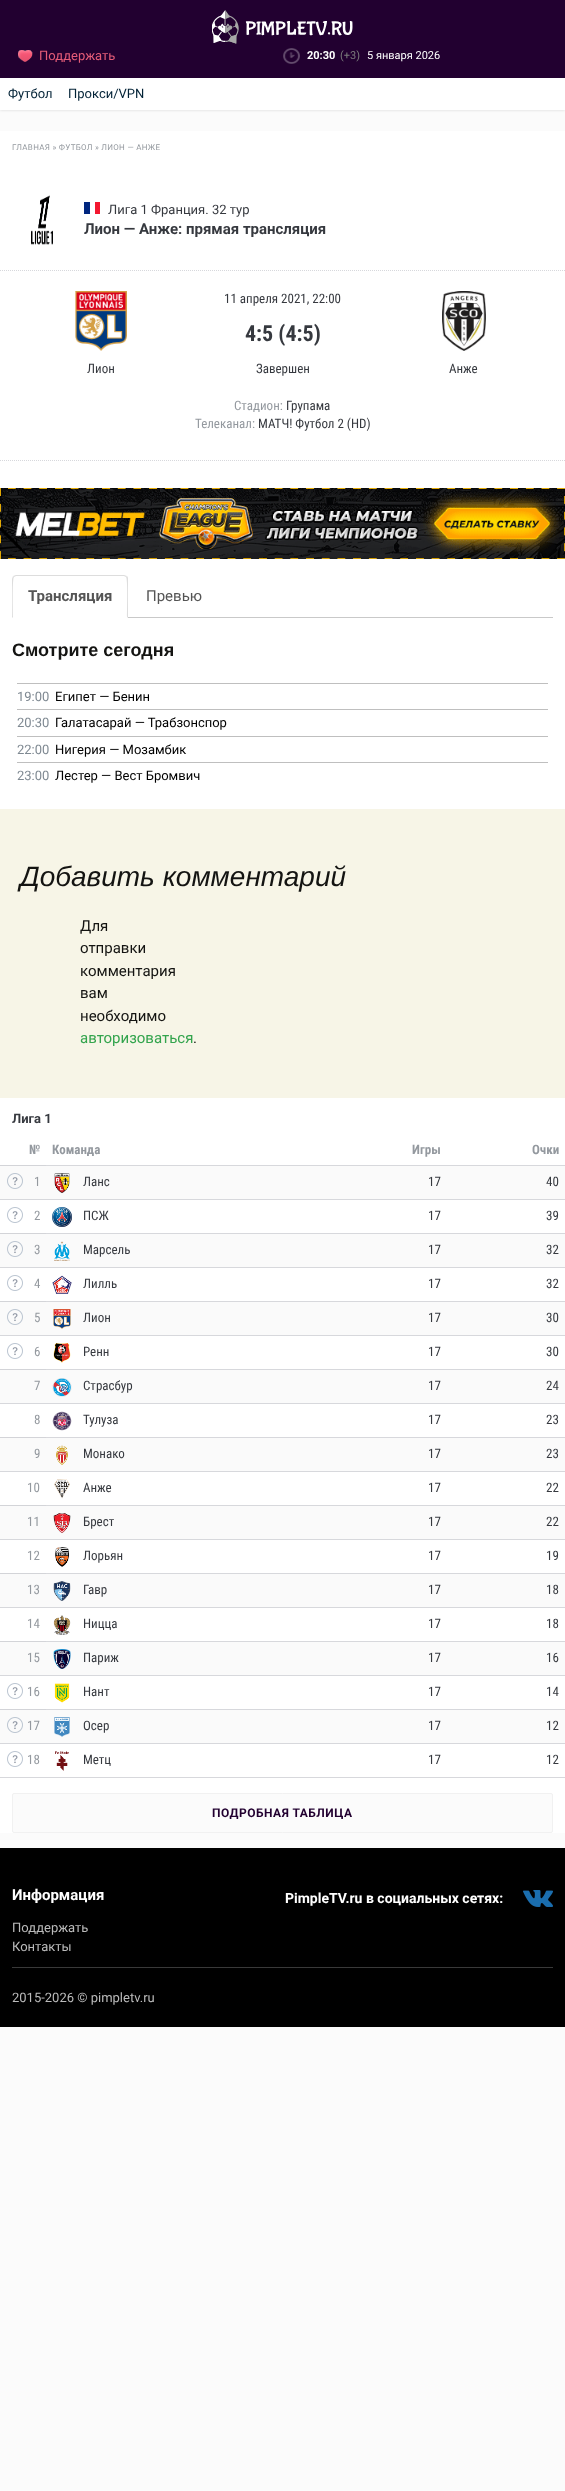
async function draw(canvas) {
  canvas.width = 565;
  canvas.height = 2491;
  const ctx = canvas.getContext('2d');
  ctx.miterLimit = 4;
  ctx.fontKerning = 'normal';
  function label(s, x, y, font, color) {
    ctx.font = font;
    ctx.fillStyle = color;
    ctx.fillText(s, x, y);
  }
  function rect(x, y, w, h, color) {
    ctx.fillStyle = color;
    ctx.fillRect(x, y, w, h);
  }
  async function image(src, x, y, w, h) {
    const img = new Image();
    img.src = src;
    await img.decode();
    ctx.drawImage(img, x, y, w, h);
  }
  let path;

  rect(0, 0, 565, 2491, '#fbfbfb');
  ctx.fillStyle = '#00000026';
  ctx.filter = 'blur(1.5px)';
  ctx.beginPath();
  ctx.rect(0, 0, 565, 110);
  ctx.fill();
  ctx.filter = 'none';
  rect(0, 0, 565, 78, '#220030');
  await image('assets/img1.png', 212, 10, 141, 34);
  await image('assets/img2.png', 18, 50, 15, 12);
  label('Поддержать', 39, 60, '13px Roboto', '#e65c78');
  await image('assets/img3.png', 283, 48, 17, 16);
  label('20:30', 307, 59, 'bold 11px Roboto', '#fff');
  label('(+3)', 340, 59, '11px Roboto', '#7c7c7c');
  label('5 января 2026', 367, 59, '11px Roboto', '#fff');
  rect(0, 78, 565, 32, '#fff');
  label('Футбол', 8, 98, '13px Roboto', '#022236');
  label('Прокси/VPN', 68, 98, '13px Roboto', '#022236');
  rect(0, 131, 565, 1702, '#fff');
  rect(0, 1710, 565, 33, '#fafafa');
  rect(0, 1642, 565, 33, '#fafafa');
  rect(0, 1574, 565, 33, '#fafafa');
  rect(0, 1506, 565, 33, '#fafafa');
  rect(0, 1438, 565, 33, '#fafafa');
  rect(0, 1370, 565, 33, '#fafafa');
  rect(0, 1302, 565, 33, '#fafafa');
  rect(0, 1234, 565, 33, '#fafafa');
  rect(0, 1166, 565, 33, '#fafafa');
  ctx.letterSpacing = '0.3px';
  label('ГЛАВНАЯ » ФУТБОЛ » ЛИОН — АНЖЕ', 12, 150, '8px Roboto', '#94999f');
  await image('assets/img4.png', 31, 195, 22, 50);
  rect(84, 202, 6, 12, '#00267f');
  rect(95, 202, 5, 12, '#f31830');
  ctx.letterSpacing = '0px';
  label('Лига 1 Франция. 32 тур', 108, 214, '13px Roboto', '#36393f');
  label('Лион — Анже: прямая трансляция', 84, 234, 'bold 15px Roboto', '#36393f');
  path = new Path2D('M0 270.5H565');
  ctx.strokeStyle = '#d7d8dc';
  ctx.setLineDash([1, 1]);
  ctx.stroke(path);
  path = new Path2D('M0 460.5H565');
  ctx.stroke(path);
  await image('assets/img5.png', 75, 291, 52, 60);
  label('Лион', 87, 373, '13px Roboto Condensed', '#36393f');
  label('11 апреля 2021, 22:00', 224, 303, '13px Roboto Condensed', '#36393f');
  label('4:5 (4:5)', 245, 341, 'bold 22px Roboto Condensed', '#36393f');
  label('Завершен', 256, 373, '13px Roboto Condensed', '#36393f');
  await image('assets/img6.png', 442, 291, 44, 60);
  label('Анже', 449, 373, '13px Roboto Condensed', '#36393f');
  label('Стадион:', 234, 410, '13px Roboto Condensed', '#94999f');
  label('Групама', 286, 410, '13px Roboto Condensed', '#36393f');
  label('Телеканал:', 195, 428, '13px Roboto Condensed', '#94999f');
  label('МАТЧ! Футбол 2 (HD)', 258, 428, '13px Roboto Condensed', '#36393f');
  await image('assets/img7.png', 0, 488, 565, 71);
  rect(128, 617, 425, 1, '#c9c9c9');
  ctx.fillStyle = '#ddd';
  path = new Path2D('M16 575L13 576L14 577L16 576H124L126 577L127 576L124 575Z');
  ctx.fill(path);
  path = new Path2D('M128 618V579C128 578 128 577 127 576L126 577C128 579 127 612 127 617Z');
  ctx.fill(path);
  path = new Path2D('M12 618L13 617C13 612 12 579 14 577L13 576L12 579Z');
  ctx.fill(path);
  label('Трансляция', 28, 601, 'bold 15px Roboto', '#555');
  label('Превью', 146, 601, '15px Roboto', '#555');
  label('Смотрите сегодня', 12, 656, 'bold 18px Liberation Sans', '#141412');
  rect(17, 683, 531, 1, '#bfbfbf');
  label('19:00', 17, 701, '13px Roboto', '#7f8992');
  label('Египет — Бенин', 55, 701, '13px Roboto', '#000');
  rect(17, 709, 531, 1, '#bfbfbf');
  label('20:30', 17, 727, '13px Roboto', '#7f8992');
  label('Галатасарай — Трабзонспор', 55, 727, '13px Roboto', '#000');
  rect(17, 736, 531, 1, '#bfbfbf');
  label('22:00', 17, 754, '13px Roboto', '#7f8992');
  label('Нигерия — Мозамбик', 55, 754, '13px Roboto', '#000');
  rect(17, 762, 531, 1, '#bfbfbf');
  label('23:00', 17, 780, '13px Roboto', '#7f8992');
  label('Лестер — Вест Бромвич', 55, 780, '13px Roboto', '#000');
  rect(0, 809, 565, 289, '#f7f5e7');
  label('Добавить комментарий', 20, 886, 'italic 28px Liberation Sans', '#141412');
  label('Для', 80, 931, '15px Roboto', '#141412');
  label('отправки', 80, 953, '15px Roboto', '#141412');
  label('комментария', 80, 976, '15px Roboto', '#141412');
  label('вам', 80, 998, '15px Roboto', '#141412');
  label('необходимо', 80, 1021, '15px Roboto', '#141412');
  label('авторизоваться', 80, 1043, '15px Roboto', '#33a44d');
  label('.', 193, 1043, '15px Roboto', '#141412');
  label('Лига 1', 12, 1123, 'bold 13px Roboto', '#36393f');
  label('№', 29, 1154, 'bold 13px Roboto Condensed', '#94999f');
  label('Команда', 52, 1154, 'bold 13px Roboto Condensed', '#94999f');
  label('Игры', 412, 1154, 'bold 13px Roboto Condensed', '#94999f');
  label('Очки', 532, 1154, 'bold 13px Roboto Condensed', '#94999f');
  rect(0, 1165, 46, 1, '#d3d4d8');
  await image('assets/img8.png', 7, 1173, 16, 16);
  label('1', 34, 1186, '13px Roboto Condensed', '#94999f');
  await image('assets/img9.png', 54, 1173, 16, 20);
  label('Ланс', 83, 1186, '13px Roboto Condensed', '#36393f');
  label('17', 428, 1186, '13px Roboto Condensed', '#36393f');
  rect(46, 1165, 519, 1, '#d7d8dc');
  rect(0, 1199, 565, 1, '#d7d8dc');
  label('40', 546, 1186, '13px Roboto Condensed', '#36393f');
  rect(0, 1233, 46, 1, '#d3d4d8');
  await image('assets/img10.png', 7, 1207, 16, 16);
  label('2', 34, 1220, '13px Roboto Condensed', '#94999f');
  await image('assets/img11.png', 52, 1207, 20, 20);
  label('ПСЖ', 83, 1220, '13px Roboto Condensed', '#36393f');
  label('17', 428, 1220, '13px Roboto Condensed', '#36393f');
  rect(46, 1233, 519, 1, '#d7d8dc');
  label('39', 546, 1220, '13px Roboto Condensed', '#36393f');
  await image('assets/img8.png', 7, 1241, 16, 16);
  label('3', 34, 1254, '13px Roboto Condensed', '#94999f');
  await image('assets/img12.png', 54, 1241, 16, 20);
  label('Марсель', 83, 1254, '13px Roboto Condensed', '#36393f');
  label('17', 428, 1254, '13px Roboto Condensed', '#36393f');
  rect(0, 1267, 565, 1, '#d7d8dc');
  label('32', 546, 1254, '13px Roboto Condensed', '#36393f');
  rect(0, 1301, 46, 1, '#d3d4d8');
  await image('assets/img10.png', 7, 1275, 16, 16);
  label('4', 34, 1288, '13px Roboto Condensed', '#94999f');
  await image('assets/img13.png', 52, 1275, 20, 19);
  label('Лилль', 83, 1288, '13px Roboto Condensed', '#36393f');
  label('17', 428, 1288, '13px Roboto Condensed', '#36393f');
  rect(46, 1301, 519, 1, '#d7d8dc');
  label('32', 546, 1288, '13px Roboto Condensed', '#36393f');
  await image('assets/img8.png', 7, 1309, 16, 16);
  label('5', 34, 1322, '13px Roboto Condensed', '#94999f');
  await image('assets/img14.png', 53, 1309, 18, 20);
  label('Лион', 83, 1322, '13px Roboto Condensed', '#36393f');
  label('17', 428, 1322, '13px Roboto Condensed', '#36393f');
  rect(0, 1335, 565, 1, '#d7d8dc');
  label('30', 546, 1322, '13px Roboto Condensed', '#36393f');
  rect(0, 1369, 46, 1, '#d3d4d8');
  await image('assets/img10.png', 7, 1343, 16, 16);
  label('6', 34, 1356, '13px Roboto Condensed', '#94999f');
  await image('assets/img15.png', 53, 1343, 18, 20);
  label('Ренн', 83, 1356, '13px Roboto Condensed', '#36393f');
  label('17', 428, 1356, '13px Roboto Condensed', '#36393f');
  rect(46, 1369, 519, 1, '#d7d8dc');
  label('30', 546, 1356, '13px Roboto Condensed', '#36393f');
  label('7', 34, 1390, '13px Roboto Condensed', '#94999f');
  await image('assets/img16.png', 52, 1378, 20, 19);
  label('Страсбур', 83, 1390, '13px Roboto Condensed', '#36393f');
  label('17', 428, 1390, '13px Roboto Condensed', '#36393f');
  rect(0, 1403, 565, 1, '#d7d8dc');
  label('24', 546, 1390, '13px Roboto Condensed', '#36393f');
  rect(0, 1437, 46, 1, '#d3d4d8');
  label('8', 34, 1424, '13px Roboto Condensed', '#94999f');
  await image('assets/img17.png', 52, 1411, 20, 20);
  label('Тулуза', 83, 1424, '13px Roboto Condensed', '#36393f');
  label('17', 428, 1424, '13px Roboto Condensed', '#36393f');
  rect(46, 1437, 519, 1, '#d7d8dc');
  label('23', 546, 1424, '13px Roboto Condensed', '#36393f');
  label('9', 34, 1458, '13px Roboto Condensed', '#94999f');
  await image('assets/img18.png', 56, 1445, 12, 20);
  label('Монако', 83, 1458, '13px Roboto Condensed', '#36393f');
  label('17', 428, 1458, '13px Roboto Condensed', '#36393f');
  rect(0, 1471, 565, 1, '#d7d8dc');
  label('23', 546, 1458, '13px Roboto Condensed', '#36393f');
  rect(0, 1505, 46, 1, '#d3d4d8');
  label('10', 27, 1492, '13px Roboto Condensed', '#94999f');
  await image('assets/img19.png', 54, 1479, 16, 20);
  label('Анже', 83, 1492, '13px Roboto Condensed', '#36393f');
  label('17', 428, 1492, '13px Roboto Condensed', '#36393f');
  rect(46, 1505, 519, 1, '#d7d8dc');
  label('22', 546, 1492, '13px Roboto Condensed', '#36393f');
  label('11', 27, 1526, '13px Roboto Condensed', '#94999f');
  await image('assets/img20.png', 53, 1513, 18, 20);
  label('Брест', 83, 1526, '13px Roboto Condensed', '#36393f');
  label('17', 428, 1526, '13px Roboto Condensed', '#36393f');
  rect(0, 1539, 565, 1, '#d7d8dc');
  label('22', 546, 1526, '13px Roboto Condensed', '#36393f');
  rect(0, 1573, 46, 1, '#d3d4d8');
  label('12', 27, 1560, '13px Roboto Condensed', '#94999f');
  await image('assets/img21.png', 55, 1547, 15, 20);
  label('Лорьян', 83, 1560, '13px Roboto Condensed', '#36393f');
  label('17', 428, 1560, '13px Roboto Condensed', '#36393f');
  rect(46, 1573, 519, 1, '#d7d8dc');
  label('19', 546, 1560, '13px Roboto Condensed', '#36393f');
  label('13', 27, 1594, '13px Roboto Condensed', '#94999f');
  await image('assets/img22.png', 53, 1581, 18, 20);
  label('Гавр', 83, 1594, '13px Roboto Condensed', '#36393f');
  label('17', 428, 1594, '13px Roboto Condensed', '#36393f');
  rect(0, 1607, 565, 1, '#d7d8dc');
  label('18', 546, 1594, '13px Roboto Condensed', '#36393f');
  rect(0, 1641, 46, 1, '#d3d4d8');
  label('14', 27, 1628, '13px Roboto Condensed', '#94999f');
  await image('assets/img23.png', 53, 1615, 18, 20);
  label('Ницца', 83, 1628, '13px Roboto Condensed', '#36393f');
  label('17', 428, 1628, '13px Roboto Condensed', '#36393f');
  rect(46, 1641, 519, 1, '#d7d8dc');
  label('18', 546, 1628, '13px Roboto Condensed', '#36393f');
  label('15', 27, 1662, '13px Roboto Condensed', '#94999f');
  await image('assets/img24.png', 53, 1649, 18, 20);
  label('Париж', 83, 1662, '13px Roboto Condensed', '#36393f');
  label('17', 428, 1662, '13px Roboto Condensed', '#36393f');
  rect(0, 1675, 565, 1, '#d7d8dc');
  label('16', 546, 1662, '13px Roboto Condensed', '#36393f');
  rect(0, 1709, 46, 1, '#d3d4d8');
  await image('assets/img10.png', 7, 1683, 16, 16);
  label('16', 27, 1696, '13px Roboto Condensed', '#94999f');
  await image('assets/img25.png', 54, 1683, 16, 20);
  label('Нант', 83, 1696, '13px Roboto Condensed', '#36393f');
  label('17', 428, 1696, '13px Roboto Condensed', '#36393f');
  rect(46, 1709, 519, 1, '#d7d8dc');
  label('14', 546, 1696, '13px Roboto Condensed', '#36393f');
  await image('assets/img8.png', 7, 1717, 16, 16);
  label('17', 27, 1730, '13px Roboto Condensed', '#94999f');
  await image('assets/img26.png', 54, 1717, 16, 20);
  label('Осер', 83, 1730, '13px Roboto Condensed', '#36393f');
  label('17', 428, 1730, '13px Roboto Condensed', '#36393f');
  rect(0, 1743, 565, 1, '#d7d8dc');
  label('12', 546, 1730, '13px Roboto Condensed', '#36393f');
  await image('assets/img10.png', 7, 1751, 16, 16);
  label('18', 27, 1764, '13px Roboto Condensed', '#94999f');
  await image('assets/img27.png', 55, 1751, 14, 20);
  label('Метц', 83, 1764, '13px Roboto Condensed', '#36393f');
  label('17', 428, 1764, '13px Roboto Condensed', '#36393f');
  rect(0, 1777, 565, 1, '#d7d8dc');
  label('12', 546, 1764, '13px Roboto Condensed', '#36393f');
  ctx.fillStyle = '#fbfbfb';
  ctx.beginPath();
  ctx.roundRect(12.5, 1793.5, 540, 39, 1.5);
  ctx.fill();
  ctx.strokeStyle = '#f1f1f1';
  ctx.setLineDash([]);
  ctx.stroke();
  ctx.letterSpacing = '0.5px';
  label('ПОДРОБНАЯ ТАБЛИЦА', 212, 1817, 'bold 12px Roboto', '#220030');
  rect(0, 1848, 565, 179, '#000');
  ctx.letterSpacing = '0px';
  label('Информация', 12, 1900, 'bold 15px Roboto', '#fff');
  label('Поддержать', 12, 1932, '13px Roboto', '#bbb');
  label('Контакты', 12, 1951, '13px Roboto', '#bbb');
  label('PimpleTV.ru в социальных сетях:', 285, 1903, 'bold 14px Roboto', '#fff');
  await image('assets/img28.png', 523, 1890, 30, 17);
  rect(12, 1967, 541, 1, '#393939');
  label('2015-2026 © pimpletv.ru', 12, 2002, '13px Roboto', '#bbb');
}

draw(document.querySelector('canvas'));
